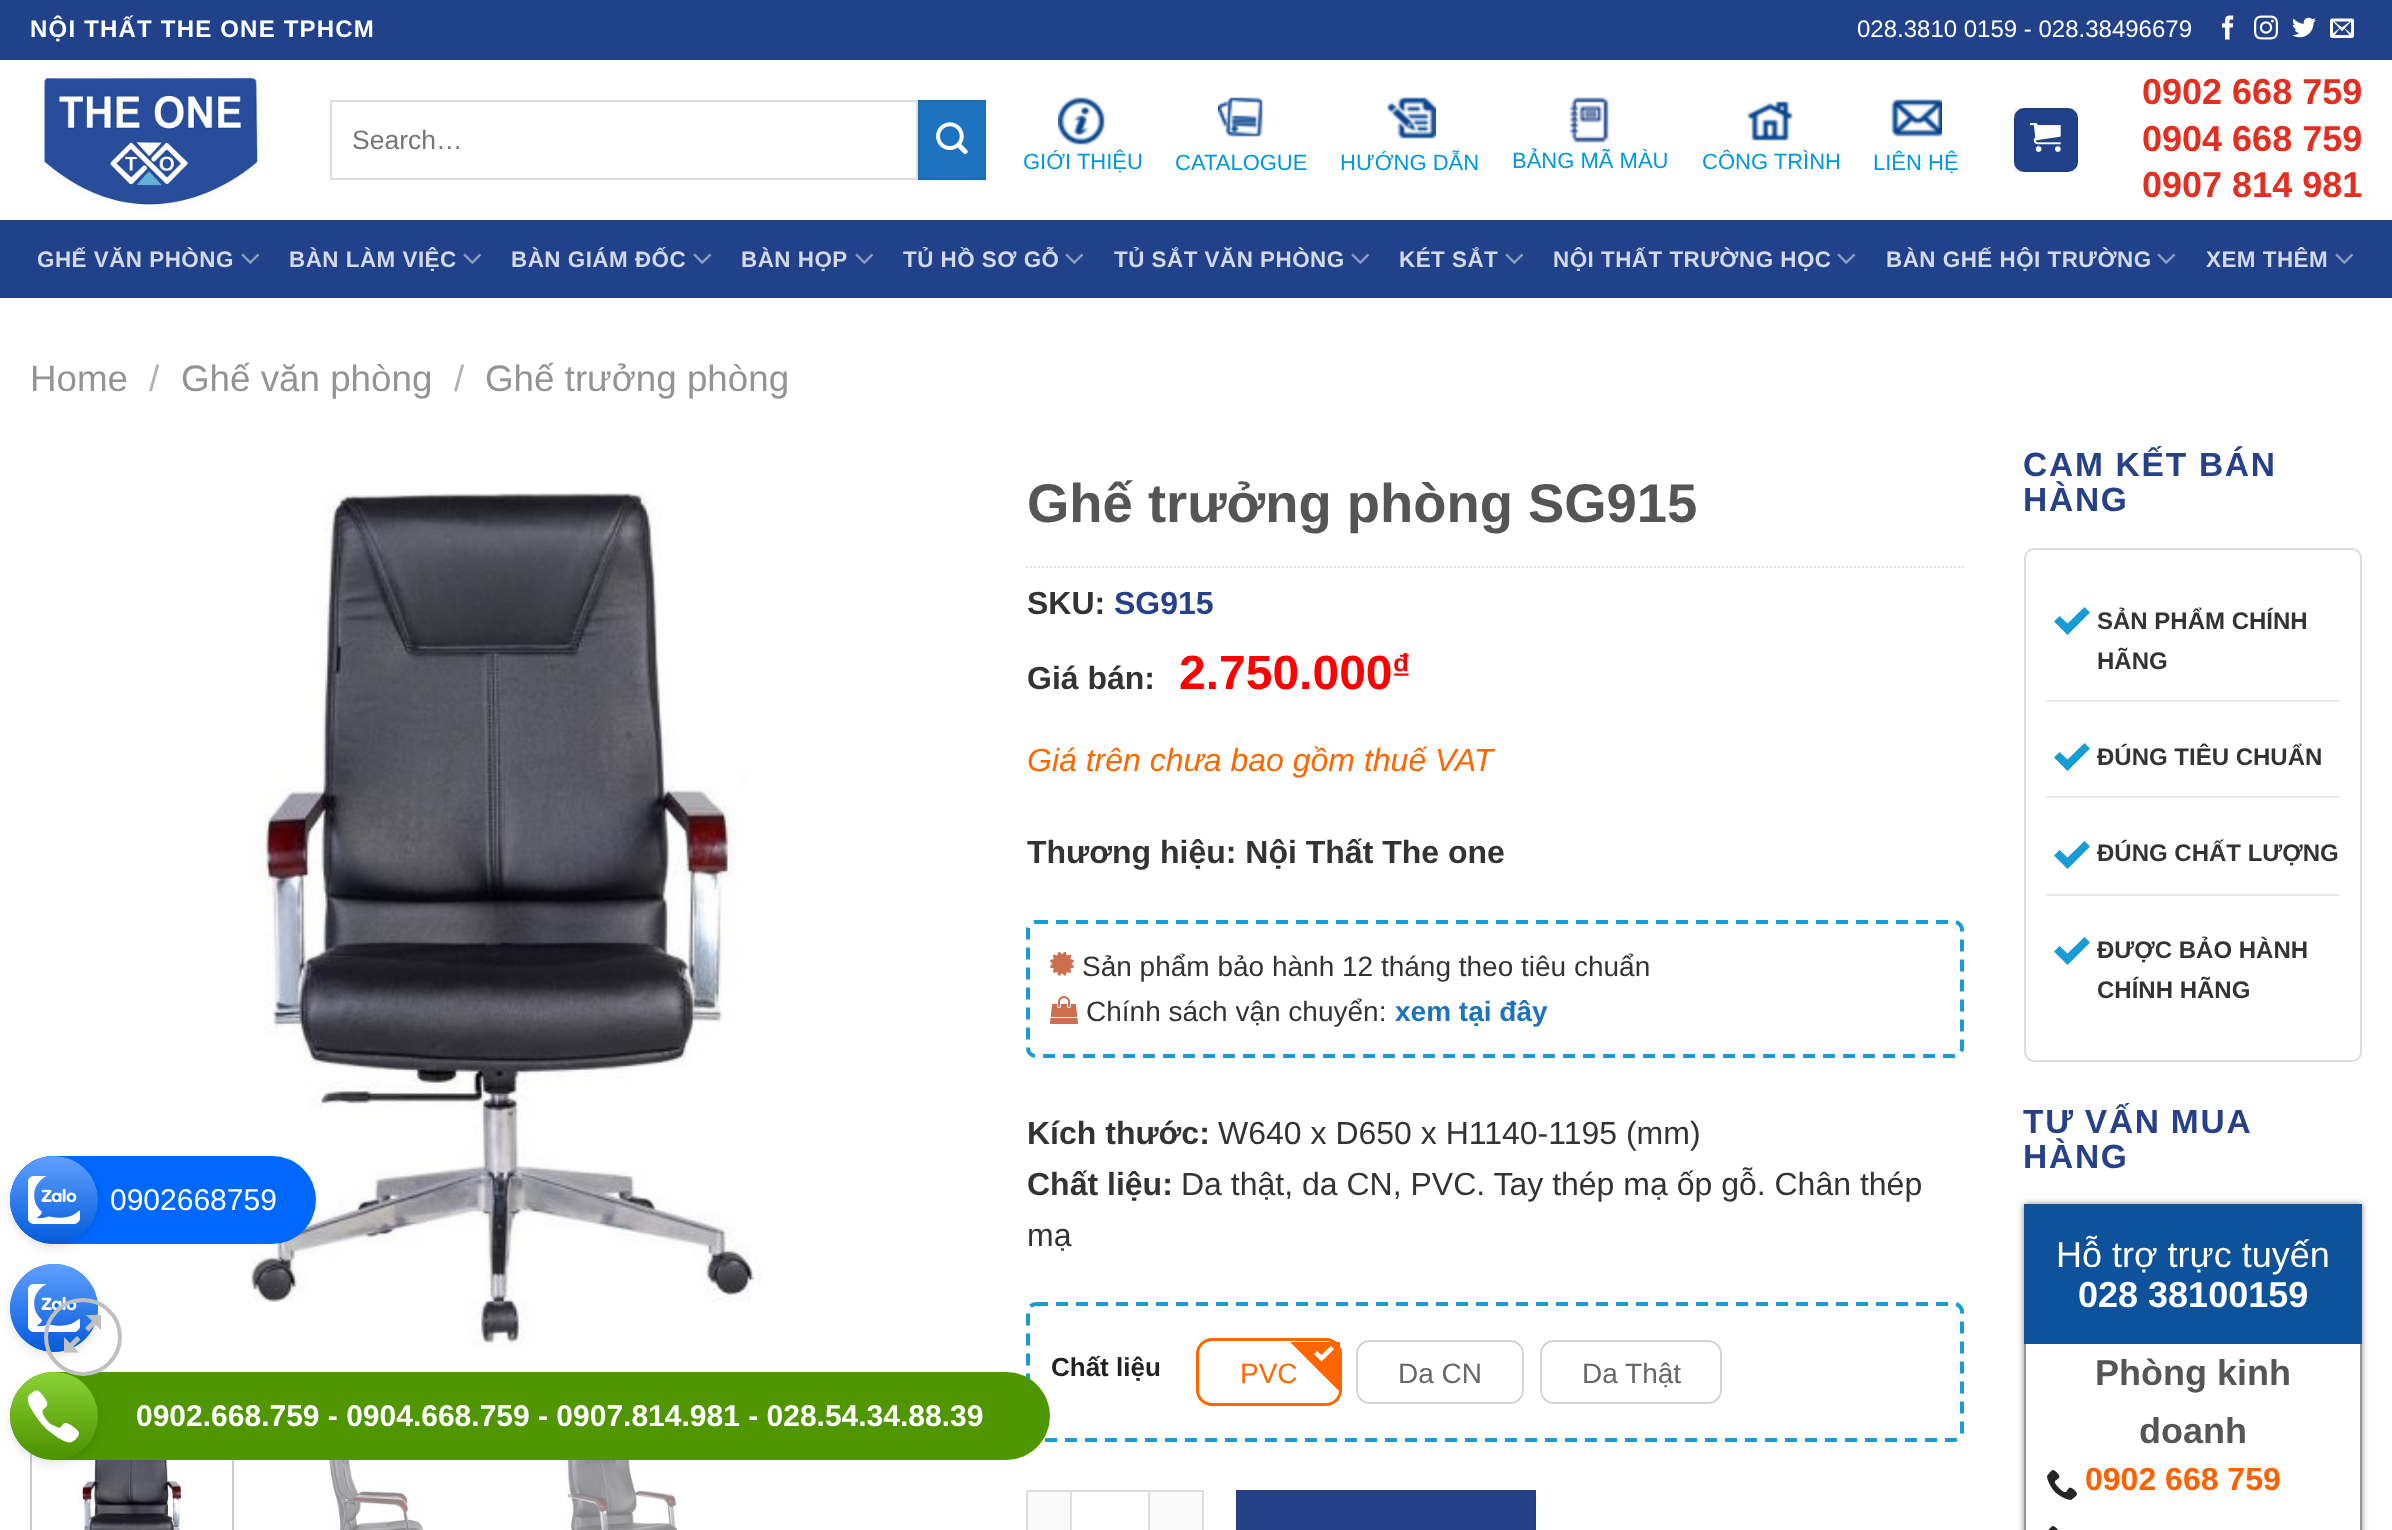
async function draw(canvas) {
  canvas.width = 2392;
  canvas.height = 1530;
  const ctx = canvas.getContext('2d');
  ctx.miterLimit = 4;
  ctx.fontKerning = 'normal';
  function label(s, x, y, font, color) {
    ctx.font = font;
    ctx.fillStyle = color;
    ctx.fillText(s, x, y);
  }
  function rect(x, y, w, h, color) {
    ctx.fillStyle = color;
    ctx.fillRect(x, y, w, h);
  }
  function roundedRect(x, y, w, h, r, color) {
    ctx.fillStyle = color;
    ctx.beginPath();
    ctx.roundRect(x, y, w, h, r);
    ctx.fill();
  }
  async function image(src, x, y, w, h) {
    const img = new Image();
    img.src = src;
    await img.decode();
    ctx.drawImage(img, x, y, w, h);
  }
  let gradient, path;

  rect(0, 0, 2392, 1530, '#fff');
  rect(0, 0, 2392, 60, '#21428a');
  ctx.letterSpacing = '1.2px';
  label('NỘI THẤT THE ONE TPHCM', 30, 37, 'bold 24px Liberation Sans', '#fff');
  ctx.letterSpacing = '0px';
  label('028.3810 0159 - 028.38496679', 1857, 37, '24px Liberation Sans', '#fff');
  await image('assets/img1.png', 2222, 15, 12, 25);
  await image('assets/img2.png', 2254, 15, 24, 25);
  await image('assets/img3.png', 2292, 17, 24, 21);
  await image('assets/img4.png', 2330, 18, 24, 20);
  await image('assets/img5.png', 39, 73, 223, 137);
  ctx.strokeStyle = '#ddd';
  ctx.lineWidth = 2;
  ctx.strokeRect(331, 101, 586, 78);
  label('Search…', 352, 149, '26.5px Liberation Sans', '#757575');
  ctx.fillStyle = '#1e73be';
  ctx.beginPath();
  ctx.rect(919, 101, 66, 78);
  ctx.fill();
  ctx.strokeStyle = '#1d6db5';
  ctx.stroke();
  await image('assets/img6.png', 936, 122, 32, 32);
  await image('assets/img7.png', 1058, 97, 47, 48);
  label('GIỚI THIỆU', 1023, 169, '22px Liberation Sans', '#0098d8');
  await image('assets/img8.png', 1218, 97, 45, 40);
  label('CATALOGUE', 1175, 170, '22px Liberation Sans', '#0098d8');
  await image('assets/img9.png', 1387, 97, 49, 42);
  label('HƯỚNG DẪN', 1340, 170, '22px Liberation Sans', '#0098d8');
  await image('assets/img10.png', 1569, 97, 40, 46);
  label('BẢNG MÃ MÀU', 1512, 168, '22px Liberation Sans', '#0098d8');
  await image('assets/img11.png', 1747, 101, 46, 40);
  label('CÔNG TRÌNH', 1702, 169, '22px Liberation Sans', '#0098d8');
  await image('assets/img12.png', 1891, 99, 51, 38);
  label('LIÊN HỆ', 1873, 170, '22px Liberation Sans', '#0098d8');
  roundedRect(2014, 108, 64, 64, 10, '#21428a');
  ctx.strokeStyle = '#0000000d';
  ctx.strokeRect(2015, 109, 62, 62);
  await image('assets/img13.png', 2030, 123, 31, 29);
  label('0902 668 759', 2142, 104, 'bold 36px Liberation Sans', '#e32f21');
  label('0904 668 759', 2142, 151, 'bold 36px Liberation Sans', '#e32f21');
  label('0907 814 981', 2142, 197, 'bold 36px Liberation Sans', '#e32f21');
  rect(0, 220, 2392, 78, '#21428a');
  ctx.letterSpacing = '0.5px';
  label('GHẾ VĂN PHÒNG', 37, 267, 'bold 22.4px Liberation Sans', '#d3d9e8');
  await image('assets/img14.png', 241, 253, 19, 11);
  label('BÀN LÀM VIỆC', 289, 267, 'bold 22.4px Liberation Sans', '#d3d9e8');
  await image('assets/img14.png', 463, 253, 19, 11);
  label('BÀN GIÁM ĐỐC', 511, 267, 'bold 22.4px Liberation Sans', '#d3d9e8');
  await image('assets/img14.png', 693, 253, 19, 11);
  label('BÀN HỌP', 741, 267, 'bold 22.4px Liberation Sans', '#d3d9e8');
  await image('assets/img14.png', 855, 253, 19, 11);
  label('TỦ HỒ SƠ GỖ', 903, 267, 'bold 22.4px Liberation Sans', '#d3d9e8');
  await image('assets/img14.png', 1065, 253, 19, 11);
  label('TỦ SẮT VĂN PHÒNG', 1114, 267, 'bold 22.4px Liberation Sans', '#d3d9e8');
  await image('assets/img14.png', 1351, 253, 19, 11);
  label('KÉT SẮT', 1399, 267, 'bold 22.4px Liberation Sans', '#d3d9e8');
  await image('assets/img14.png', 1505, 253, 19, 11);
  label('NỘI THẤT TRƯỜNG HỌC', 1553, 267, 'bold 22.4px Liberation Sans', '#d3d9e8');
  await image('assets/img14.png', 1837, 253, 19, 11);
  label('BÀN GHẾ HỘI TRƯỜNG', 1886, 267, 'bold 22.4px Liberation Sans', '#d3d9e8');
  await image('assets/img14.png', 2157, 253, 19, 11);
  label('XEM THÊM', 2206, 267, 'bold 22.4px Liberation Sans', '#d3d9e8');
  await image('assets/img14.png', 2335, 253, 19, 11);
  ctx.letterSpacing = '0px';
  label('Home', 30, 391, '36.75px Liberation Sans', '#949494');
  label('/', 149, 391, '36.75px Liberation Sans', '#b2b2b2');
  label('Ghế văn phòng', 181, 391, '36.75px Liberation Sans', '#949494');
  label('/', 454, 391, '36.75px Liberation Sans', '#b2b2b2');
  label('Ghế trưởng phòng', 485, 391, '36.75px Liberation Sans', '#949494');
  ctx.fillStyle = '#0000001c';
  ctx.filter = 'blur(5px)';
  ctx.beginPath();
  ctx.roundRect(10, 1268, 88, 88, 44);
  ctx.fill();
  ctx.filter = 'none';
  ctx.fillStyle = '#0068ff';
  ctx.beginPath();
  ctx.arc(54, 1308, 44, 0, 2 * Math.PI);
  ctx.fill();
  await image('assets/img24.png', 10, 1264, 88, 88);
  ctx.strokeStyle = '#ccc';
  ctx.strokeRect(31, 1417, 202, 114);
  await image('assets/img16.png', 77, 1460, 110, 70);
  path = new Path2D('M1036 1304H1954C1958.5 1304 1962 1307.5 1962 1312V1432C1962 1436.5 1958.5 1440 1954 1440H1036C1031.5 1440 1028 1436.5 1028 1432V1312C1028 1307.5 1031.5 1304 1036 1304Z');
  ctx.strokeStyle = '#199cd3';
  ctx.lineWidth = 4;
  ctx.setLineDash([12, 8]);
  ctx.stroke(path);
  roundedRect(10, 1372, 1040, 88, 44, '#509600');
  ctx.fillStyle = '#0000001c';
  ctx.filter = 'blur(5px)';
  ctx.beginPath();
  ctx.roundRect(10, 1376, 88, 88, 44);
  ctx.fill();
  ctx.filter = 'none';
  gradient = ctx.createLinearGradient(54, 1372, 54, 1453);
  gradient.addColorStop(0, '#8ad336');
  gradient.addColorStop(1, '#509600');
  ctx.fillStyle = gradient;
  ctx.beginPath();
  ctx.arc(54, 1416, 44, 0, 2 * Math.PI);
  ctx.fill();
  ctx.beginPath();
  ctx.arc(83, 1337, 37, 0, 2 * Math.PI);
  ctx.strokeStyle = '#c0c0c0';
  ctx.setLineDash([]);
  ctx.stroke();
  ctx.fillStyle = '#c0c0c0';
  path = new Path2D('M101 1315V1330L95.5 1324.5L88.5 1331.5L85 1328L92 1321L86 1315ZM80.5 1339.5L73.5 1346.5L79 1352.5H64V1337L70 1343L77 1336Z');
  ctx.fill(path);
  await image('assets/img15.png', 249, 492, 512, 854);
  await image('assets/img17.png', 328, 1460, 96, 70);
  await image('assets/img18.png', 565, 1460, 114, 70);
  label('Ghế trưởng phòng SG915', 1027, 522, 'bold 54.4px Liberation Sans', '#555');
  path = new Path2D('M1026 567H1964');
  ctx.strokeStyle = '#ddd';
  ctx.lineWidth = 2;
  ctx.setLineDash([2, 2]);
  ctx.stroke(path);
  label('SKU:', 1027, 614, 'bold 32px Liberation Sans', '#333');
  label('SG915', 1114, 614, 'bold 32px Liberation Sans', '#274188');
  label('Giá bán:', 1027, 689, 'bold 32px Liberation Sans', '#333');
  label('2.750.000', 1179, 689, 'bold 48px Liberation Sans', '#f00');
  label('₫', 1392, 679, 'bold 36px Liberation Sans', '#f00');
  label('Giá trên chưa bao gồm thuế VAT', 1027, 771, 'italic 32px Liberation Sans', '#f60');
  label('Thương hiệu: Nội Thất The one', 1027, 863, 'bold 32px Liberation Sans', '#333');
  path = new Path2D('M1036 922H1954C1958.5 922 1962 925.5 1962 930V1048C1962 1052.5 1958.5 1056 1954 1056H1036C1031.5 1056 1028 1052.5 1028 1048V930C1028 925.5 1031.5 922 1036 922Z');
  ctx.strokeStyle = '#199cd3';
  ctx.lineWidth = 4;
  ctx.setLineDash([12, 8]);
  ctx.stroke(path);
  await image('assets/img19.png', 1050, 951, 24, 25);
  label('Sản phẩm bảo hành 12 tháng theo tiêu chuẩn', 1082, 976, '28px Liberation Sans', '#333');
  await image('assets/img20.png', 1050, 996, 28, 28);
  label('Chính sách vận chuyển:', 1086, 1021, '28px Liberation Sans', '#333');
  label('xem tại đây', 1395, 1021, 'bold 28px Liberation Sans', '#1e73be');
  label('Kích thước:', 1027, 1144, 'bold 32px Liberation Sans', '#333');
  label('W640 x D650 x H1140-1195 (mm)', 1218, 1144, '32px Liberation Sans', '#333');
  label('Chất liệu:', 1027, 1195, 'bold 32px Liberation Sans', '#333');
  label('Da thật, da CN, PVC. Tay thép mạ ốp gỗ. Chân thép', 1181, 1195, '32px Liberation Sans', '#333');
  label('mạ', 1027, 1246, '32px Liberation Sans', '#333');
  label('Chất liệu', 1051, 1376, 'bold 26px Liberation Sans', '#222');
  ctx.beginPath();
  ctx.roundRect(1197.5, 1339.5, 143, 65, 14.5);
  ctx.strokeStyle = '#f60';
  ctx.lineWidth = 3;
  ctx.setLineDash([]);
  ctx.stroke();
  ctx.fillStyle = '#f60';
  path = new Path2D('M1290 1342H1340V1392Z');
  ctx.fill(path);
  ctx.fillStyle = '#fff';
  path = new Path2D('M1331 1346L1321.5 1355L1317 1351L1314 1354L1321.5 1361.5L1334 1349Z');
  ctx.fill(path);
  label('PVC', 1240, 1383, '28px Liberation Sans', '#f60');
  ctx.beginPath();
  ctx.roundRect(1357, 1341, 166, 62, 13);
  ctx.strokeStyle = '#d5d5d5';
  ctx.lineWidth = 2;
  ctx.stroke();
  label('Da CN', 1398, 1383, '28px Liberation Sans', '#666');
  ctx.beginPath();
  ctx.roundRect(1541, 1341, 180, 62, 13);
  ctx.stroke();
  label('Da Thật', 1582, 1383, '28px Liberation Sans', '#666');
  rect(1028, 1492, 42, 38, '#f9f9f9');
  rect(1026, 1490, 44, 2, '#ddd');
  rect(1026, 1490, 2, 40, '#ddd');
  ctx.strokeStyle = '#ddd';
  ctx.strokeRect(1071, 1491, 78, 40);
  rect(1150, 1492, 52, 38, '#f9f9f9');
  rect(1150, 1490, 54, 2, '#ddd');
  rect(1202, 1490, 2, 40, '#ddd');
  ctx.fillStyle = '#274188';
  ctx.beginPath();
  ctx.rect(1237, 1491, 298, 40);
  ctx.fill();
  ctx.strokeStyle = '#253e81';
  ctx.stroke();
  ctx.letterSpacing = '1.75px';
  label('CAM KẾT BÁN', 2023, 476, 'bold 33.5px Liberation Sans', '#274188');
  label('HÀNG', 2023, 511, 'bold 33.5px Liberation Sans', '#274188');
  ctx.beginPath();
  ctx.roundRect(2025, 549, 336, 512, 9);
  ctx.strokeStyle = '#ddd';
  ctx.stroke();
  rect(2046, 700, 294, 2, '#ebe7e7');
  ctx.fillStyle = '#199cd3';
  path = new Path2D('M2084.5 607L2067.5 623.5L2059.5 616L2054 621.5L2067.5 635L2090 612.5Z');
  ctx.fill(path);
  ctx.letterSpacing = '0px';
  label('SẢN PHẨM CHÍNH', 2097, 629, 'bold 24px Liberation Sans', '#333');
  label('HÃNG', 2097, 669, 'bold 24px Liberation Sans', '#333');
  rect(2046, 796, 294, 2, '#ebe7e7');
  ctx.fillStyle = '#199cd3';
  path = new Path2D('M2084.5 743L2067.5 759.5L2059.5 752L2054 757.5L2067.5 771L2090 748.5Z');
  ctx.fill(path);
  label('ĐÚNG TIÊU CHUẨN', 2097, 765, 'bold 24px Liberation Sans', '#333');
  rect(2046, 894, 294, 2, '#ebe7e7');
  ctx.fillStyle = '#199cd3';
  path = new Path2D('M2084.5 841L2067.5 857.5L2059.5 850L2054 855.5L2067.5 869L2090 846.5Z');
  ctx.fill(path);
  label('ĐÚNG CHẤT LƯỢNG', 2097, 861, 'bold 24px Liberation Sans', '#333');
  ctx.fillStyle = '#199cd3';
  path = new Path2D('M2084.5 937L2067.5 953.5L2059.5 946L2054 951.5L2067.5 965L2090 942.5Z');
  ctx.fill(path);
  label('ĐƯỢC BẢO HÀNH', 2097, 958, 'bold 24px Liberation Sans', '#333');
  label('CHÍNH HÃNG', 2097, 998, 'bold 24px Liberation Sans', '#333');
  ctx.letterSpacing = '1.75px';
  ctx.wordSpacing = '-1px';
  label('TƯ VẤN MUA', 2023, 1133, 'bold 33.5px Liberation Sans', '#274188');
  ctx.wordSpacing = '0px';
  label('HÀNG', 2023, 1168, 'bold 33.5px Liberation Sans', '#274188');
  ctx.save();
  path = new Path2D('M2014 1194H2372V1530H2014ZM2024 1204H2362V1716H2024Z');
  ctx.clip(path, 'evenodd');
  ctx.fillStyle = '#898989';
  ctx.filter = 'blur(3px)';
  ctx.beginPath();
  ctx.rect(2024, 1204, 338, 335);
  ctx.fill();
  ctx.filter = 'none';
  ctx.restore();
  rect(2024, 1204, 338, 140, '#0d529a');
  ctx.letterSpacing = '0px';
  label('Hỗ trợ trực tuyến', 2056, 1267, '36px Liberation Sans', '#fff');
  label('028 38100159', 2078, 1307, 'bold 36px Liberation Sans', '#fff');
  rect(2360, 1344, 2, 186, '#959595');
  rect(2024, 1344, 2, 186, '#959595');
  label('Phòng kinh', 2095, 1385, 'bold 36px Liberation Sans', '#555');
  label('doanh', 2139, 1443, 'bold 36px Liberation Sans', '#555');
  await image('assets/img21.png', 2047, 1470, 30, 30);
  label('0902 668 759', 2085, 1490, 'bold 32px Liberation Sans', '#ff6000');
  await image('assets/img22.png', 2048, 1526, 10, 4);
  roundedRect(10, 1156, 306, 88, 44, '#0068ff');
  ctx.fillStyle = '#0000001c';
  ctx.filter = 'blur(5px)';
  ctx.beginPath();
  ctx.roundRect(10, 1160, 88, 88, 44);
  ctx.fill();
  ctx.filter = 'none';
  ctx.fillStyle = '#0068ff';
  ctx.beginPath();
  ctx.arc(54, 1200, 44, 0, 2 * Math.PI);
  ctx.fill();
  await image('assets/img23.png', 10, 1156, 88, 88);
  label('0902668759', 110, 1210, '30px Liberation Sans', '#fff');
  path = new Path2D('M38 1391C41 1392 44 1397 46 1400C52 1410 36 1406 46 1419C48 1422 51 1425 55 1426C63 1431 60 1423 66 1423C69 1423 79 1430 79 1433C79 1435 78 1437 76 1439C71 1444 68 1443 62 1440C51 1434 42 1426 35 1415L29 1405C27 1398 27 1396 33 1392C34 1391 36 1390 38 1391Z');
  ctx.fill(path, 'evenodd');
  label('0902.668.759 - 0904.668.759 - 0907.814.981 - 028.54.34.88.39', 136, 1426, 'bold 30px Liberation Sans', '#fff');
}

draw(document.querySelector('canvas'));
